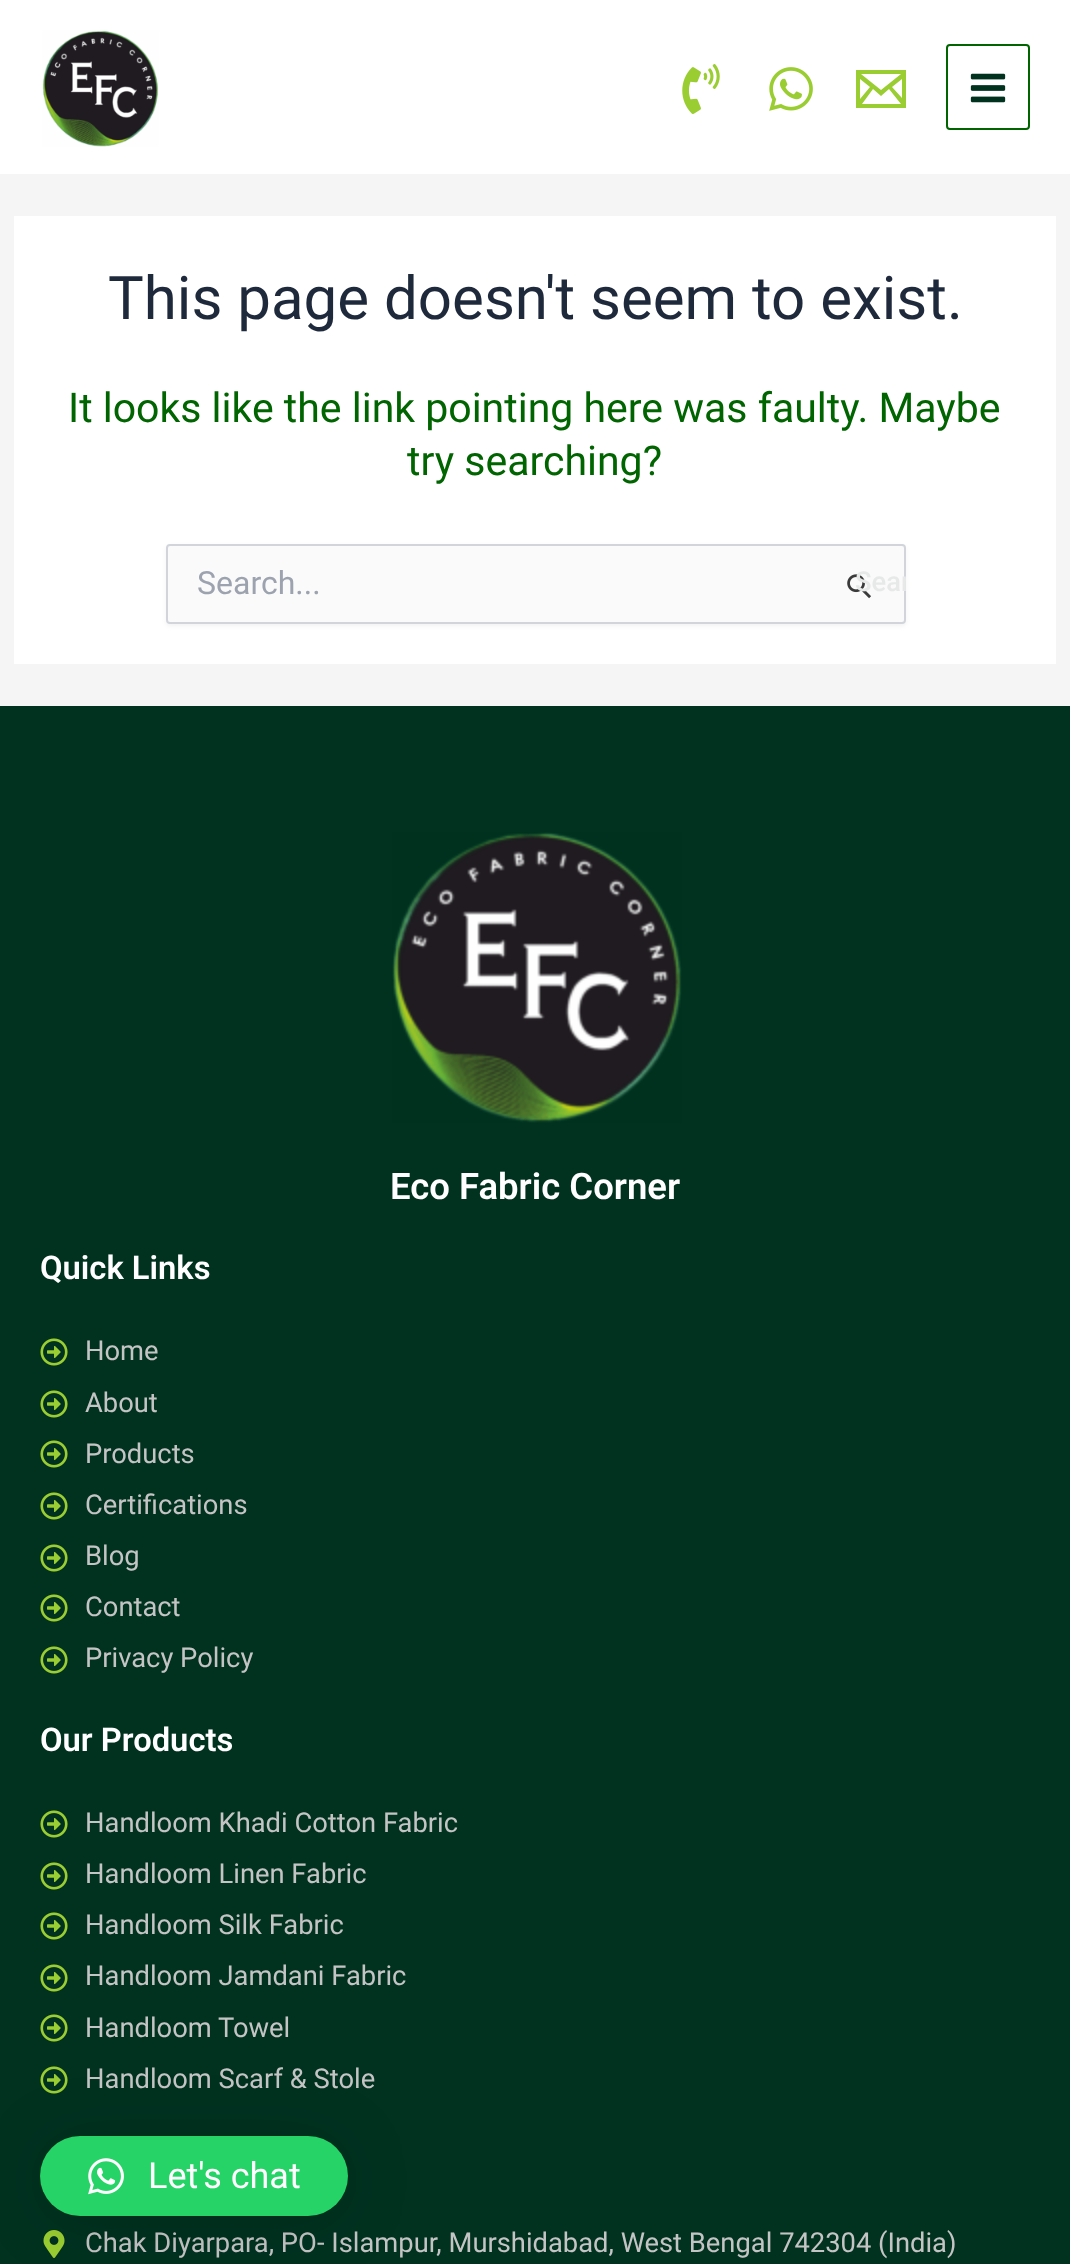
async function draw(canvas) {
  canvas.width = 1070;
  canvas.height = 2264;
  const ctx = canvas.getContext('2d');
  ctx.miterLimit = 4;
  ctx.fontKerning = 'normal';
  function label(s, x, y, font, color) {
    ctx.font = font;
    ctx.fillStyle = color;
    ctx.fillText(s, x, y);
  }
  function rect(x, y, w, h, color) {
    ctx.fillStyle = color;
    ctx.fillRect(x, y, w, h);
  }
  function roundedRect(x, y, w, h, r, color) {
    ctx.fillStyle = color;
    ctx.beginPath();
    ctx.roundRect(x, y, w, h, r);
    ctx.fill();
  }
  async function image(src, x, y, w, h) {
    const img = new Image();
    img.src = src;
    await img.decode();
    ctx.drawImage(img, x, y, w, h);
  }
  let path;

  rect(0, 0, 1070, 2264, '#f5f5f5');
  rect(0, 0, 1070, 174, '#fff');
  await image('assets/img1.png', 42, 30, 117, 117);
  await image('assets/img2.png', 682, 64, 38, 50);
  await image('assets/img3.png', 769, 67, 44, 44);
  ctx.fillStyle = '#9acd32';
  path = new Path2D('M856 70V108H906V70ZM870 87L860 99V79ZM861 74H901L881 90ZM873 89L881 96L889 89L901 104H862ZM892 87L902 79V98Z');
  ctx.fill(path);
  ctx.beginPath();
  ctx.roundRect(947, 45, 82, 84, 3);
  ctx.strokeStyle = '#006401';
  ctx.lineWidth = 2;
  ctx.stroke();
  await image('assets/img4.png', 970, 73, 36, 30);
  rect(14, 216, 1042, 448, '#fff');
  label('This page doesn\'t seem to exist.', 108, 319, '60px Roboto', '#1e293b');
  label('It looks like the link pointing here was faulty. Maybe', 68, 422, '41px Roboto', '#006401');
  label('try searching?', 407, 475, '41px Roboto', '#006401');
  ctx.fillStyle = '#0000000d';
  ctx.filter = 'blur(2px)';
  ctx.beginPath();
  ctx.roundRect(166, 546, 740, 80, 4);
  ctx.fill();
  ctx.filter = 'none';
  ctx.fillStyle = '#fafafa';
  ctx.beginPath();
  ctx.roundRect(167, 545, 738, 78, 3);
  ctx.fill();
  ctx.strokeStyle = '#d1d5db';
  ctx.stroke();
  label('Search...', 197, 594, '32px Roboto', '#9ca3af');
  await image('assets/img5.png', 847, 574, 24, 25);
  ctx.save();
  ctx.beginPath();
  ctx.roundRect(816, 544, 90, 78, 4);
  ctx.clip();
  label('Sear', 855, 591, '500 27.35px Roboto', '#e7e8e8');
  ctx.restore();
  rect(0, 706, 1070, 1558, '#013220');
  await image('assets/img6.png', 392, 832, 290, 291);
  label('Eco Fabric Corner', 390, 1199, '600 36.5px Roboto', '#fff');
  label('Quick Links', 40, 1279, '600 32.75px Roboto', '#fff');
  await image('assets/img7.png', 40, 1338, 28, 28);
  label('Home', 85, 1360, '27.35px Roboto', '#c4c4c4');
  await image('assets/img7.png', 40, 1390, 28, 28);
  label('About', 85, 1412, '27.35px Roboto', '#c4c4c4');
  await image('assets/img7.png', 40, 1440, 28, 28);
  label('Products', 85, 1463, '27.35px Roboto', '#c4c4c4');
  await image('assets/img7.png', 40, 1492, 28, 28);
  label('Certifications', 85, 1514, '27.35px Roboto', '#c4c4c4');
  await image('assets/img7.png', 40, 1544, 28, 28);
  label('Blog', 85, 1565, '27.35px Roboto', '#c4c4c4');
  await image('assets/img7.png', 40, 1594, 28, 28);
  label('Contact', 85, 1616, '27.35px Roboto', '#c4c4c4');
  await image('assets/img7.png', 40, 1646, 28, 28);
  label('Privacy Policy', 85, 1667, '27.35px Roboto', '#c4c4c4');
  label('Our Products', 40, 1751, '600 32.75px Roboto', '#fff');
  await image('assets/img7.png', 40, 1810, 28, 28);
  label('Handloom Khadi Cotton Fabric', 85, 1832, '27.35px Roboto', '#c4c4c4');
  await image('assets/img7.png', 40, 1862, 28, 28);
  label('Handloom Linen Fabric', 85, 1883, '27.35px Roboto', '#c4c4c4');
  await image('assets/img7.png', 40, 1912, 28, 28);
  label('Handloom Silk Fabric', 85, 1934, '27.35px Roboto', '#c4c4c4');
  await image('assets/img7.png', 40, 1964, 28, 28);
  label('Handloom Jamdani Fabric', 85, 1985, '27.35px Roboto', '#c4c4c4');
  await image('assets/img7.png', 40, 2014, 28, 28);
  label('Handloom Towel', 85, 2037, '27.35px Roboto', '#c4c4c4');
  await image('assets/img7.png', 40, 2066, 28, 28);
  label('Handloom Scarf & Stole', 85, 2088, '27.35px Roboto', '#c4c4c4');
  await image('assets/img8.png', 43, 2230, 22, 28);
  label('Chak Diyarpara, PO- Islampur, Murshidabad, West Bengal 742304 (India)', 85, 2252, '27.35px Roboto', '#c4c4c4');
  ctx.fillStyle = '#00000029';
  ctx.filter = 'blur(32px)';
  ctx.beginPath();
  ctx.roundRect(40, 2140, 308, 80, 40);
  ctx.fill();
  ctx.filter = 'none';
  roundedRect(40, 2136, 308, 80, 40, '#25d366');
  await image('assets/img9.png', 88, 2158, 36, 37);
  label('Let\'s chat', 148, 2188, '36px Roboto', '#fff');
}

draw(document.querySelector('canvas'));
